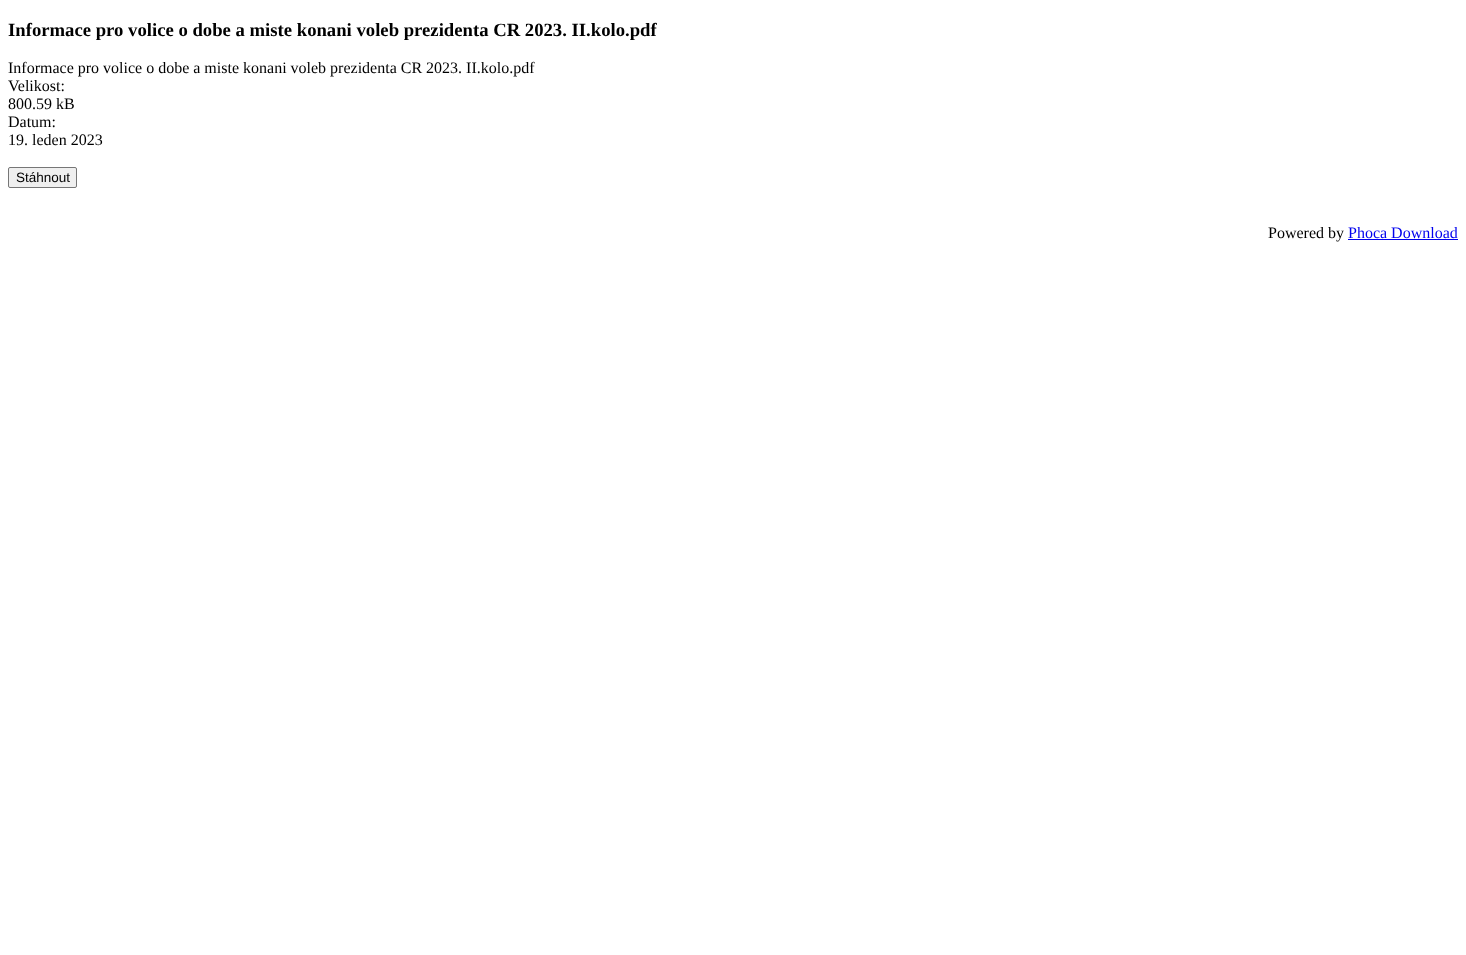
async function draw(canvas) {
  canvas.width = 1466;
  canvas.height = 955;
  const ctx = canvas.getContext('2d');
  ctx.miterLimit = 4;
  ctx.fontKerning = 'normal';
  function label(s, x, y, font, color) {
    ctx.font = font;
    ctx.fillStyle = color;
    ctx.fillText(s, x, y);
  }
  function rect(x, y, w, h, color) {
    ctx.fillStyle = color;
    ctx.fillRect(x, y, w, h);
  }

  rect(0, 0, 1466, 955, '#fff');
  label('Informace pro volice o dobe a miste konani voleb prezidenta CR 2023. II.kolo.pdf', 8, 36, 'bold 18.7px Liberation Serif', '#000');
  label('Informace pro volice o dobe a miste konani voleb prezidenta CR 2023. II.kolo.pdf', 8, 73, '16px Liberation Serif', '#000');
  label('Velikost:', 8, 91, '16px Liberation Serif', '#000');
  label('800.59 kB', 8, 109, '16px Liberation Serif', '#000');
  label('Datum:', 8, 127, '16px Liberation Serif', '#000');
  label('19. leden 2023', 8, 145, '16px Liberation Serif', '#000');
  ctx.fillStyle = '#efefef';
  ctx.beginPath();
  ctx.roundRect(8.5, 167.5, 68, 20, 1.5);
  ctx.fill();
  ctx.strokeStyle = '#767676';
  ctx.stroke();
  label('Stáhnout', 16, 182, '13.5px Liberation Sans', '#000');
  label('Powered by', 1268, 238, '16px Liberation Serif', '#000');
  label('Phoca Download', 1348, 238, '16px Liberation Serif', '#00e');
  rect(1348, 239, 110, 1, '#00e');
}

draw(document.querySelector('canvas'));
